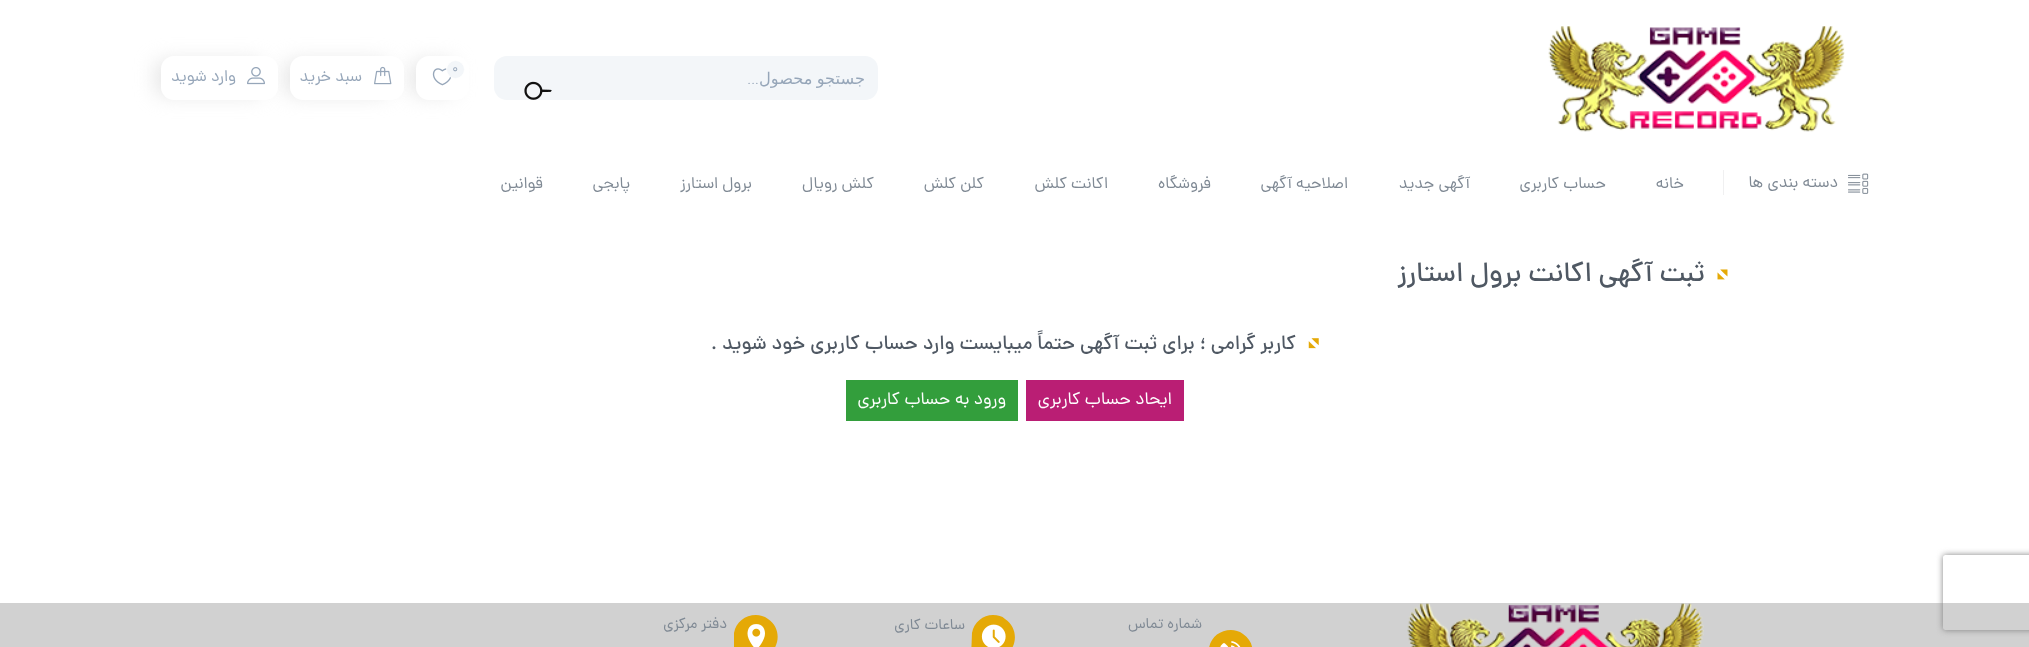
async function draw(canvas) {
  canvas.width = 2029;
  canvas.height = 647;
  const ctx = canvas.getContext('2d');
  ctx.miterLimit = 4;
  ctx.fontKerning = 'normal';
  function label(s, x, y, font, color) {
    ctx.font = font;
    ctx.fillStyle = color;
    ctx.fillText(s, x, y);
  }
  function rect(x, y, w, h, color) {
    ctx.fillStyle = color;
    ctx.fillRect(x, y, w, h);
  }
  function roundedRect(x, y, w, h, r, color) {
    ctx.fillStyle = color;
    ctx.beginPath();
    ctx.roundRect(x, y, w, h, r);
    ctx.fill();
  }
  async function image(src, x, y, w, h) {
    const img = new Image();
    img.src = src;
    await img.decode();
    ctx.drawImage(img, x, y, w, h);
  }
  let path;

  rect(0, 0, 2029, 647, '#fff');
  await image('assets/img1.png', 1548, 26, 297, 106);
  roundedRect(494, 56, 384, 44, 13, '#f3f6f9');
  ctx.wordSpacing = '-1px';
  ctx.direction = 'rtl';
  label('جستجو محصول', 865, 84, '16.25px DejaVu Sans', '#96a6b9');
  ctx.wordSpacing = '0px';
  label('...', 759, 84, '300 16.25px Roboto', '#96a6b9');
  await image('assets/img2.png', 524, 81, 28, 19);
  ctx.fillStyle = '#dbdbdbb3';
  ctx.filter = 'blur(9.5px)';
  ctx.beginPath();
  ctx.roundRect(410, 60, 45, 36, 9);
  ctx.fill();
  ctx.filter = 'none';
  roundedRect(416, 56, 53, 44, 13, '#fff');
  await image('assets/img3.png', 432, 68, 20, 18);
  ctx.fillStyle = '#f3f6f9';
  ctx.beginPath();
  ctx.arc(455.5, 69.5, 9, 0, 2 * Math.PI);
  ctx.fill();
  ctx.strokeStyle = '#fff';
  ctx.stroke();
  ctx.direction = 'ltr';
  label('0', 452, 72, '12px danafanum', '#96a6b9');
  ctx.fillStyle = '#dbdbdbb3';
  ctx.filter = 'blur(9.5px)';
  ctx.beginPath();
  ctx.roundRect(284, 60, 106, 36, 9);
  ctx.fill();
  ctx.filter = 'none';
  roundedRect(290, 56, 114, 44, 13, '#fff');
  await image('assets/img4.png', 374, 66, 18, 19);
  ctx.direction = 'rtl';
  label('سبد خرید', 362, 81, '16.25px danafanum', '#96a6b9');
  ctx.fillStyle = '#dbdbdbb3';
  ctx.filter = 'blur(9.5px)';
  ctx.beginPath();
  ctx.roundRect(155, 60, 109, 36, 9);
  ctx.fill();
  ctx.filter = 'none';
  roundedRect(161, 56, 117, 44, 13, '#fff');
  await image('assets/img5.png', 247, 67, 18, 18);
  label('وارد شوید', 236, 81, '16.25px danafanum', '#96a6b9');
  await image('assets/img6.png', 1848, 173, 21, 21);
  label('دسته بندی ها', 1838, 187, '16.25px danafanum', '#7f8994');
  rect(1723, 170, 1, 25, '#f0f0f1');
  label('خانه', 1684, 188, '16.25px danafanum', '#7f8994');
  label('حساب کاربری', 1606, 188, '16.25px danafanum', '#7f8994');
  label('آگهی جدید', 1470, 188, '16.25px danafanum', '#7f8994');
  label('اصلاحیه آگهی', 1348, 188, '16.25px danafanum', '#7f8994');
  label('فروشگاه', 1211, 188, '16.25px danafanum', '#7f8994');
  label('اکانت کلش', 1108, 188, '16.25px danafanum', '#7f8994');
  label('کلن کلش', 984, 188, '16.25px danafanum', '#7f8994');
  label('کلش رویال', 874, 188, '16.25px danafanum', '#7f8994');
  label('برول استارز', 752, 188, '16.25px danafanum', '#7f8994');
  label('پابجی', 630, 188, '16.25px danafanum', '#7f8994');
  label('قوانین', 543, 188, '16.25px danafanum', '#7f8994');
  await image('assets/img7.png', 1717, 269, 11, 11);
  label('ثبت آگهی اکانت برول استارز', 1705, 281, '500 27.5px danafanum', '#4f5863');
  await image('assets/img8.png', 1308, 338, 11, 11);
  label('کاربر گرامی ؛ برای ثبت آگهی حتماً میبایست وارد حساب کاربری خود شوید .', 1296, 349, '500 20px danafanum', '#4f5863');
  rect(1026, 380, 158, 41, '#ba1e74');
  label('ایحاد حساب کاربری', 1172, 404, '17.5px danafanum', '#fff');
  rect(846, 380, 172, 41, '#339e3c');
  label('ورود به حساب کاربری', 1006, 404, '17.5px danafanum', '#fff');
  rect(0, 603, 2029, 44, '#d1d1d1');
  ctx.save();
  path = new Path2D('M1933 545H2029V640H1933ZM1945.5 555H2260.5C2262 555 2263 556 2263 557.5V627.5C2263 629 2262 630 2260.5 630H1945.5C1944 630 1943 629 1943 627.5V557.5C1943 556 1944 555 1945.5 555Z');
  ctx.clip(path, 'evenodd');
  ctx.fillStyle = '#808080';
  ctx.filter = 'blur(3px)';
  ctx.beginPath();
  ctx.roundRect(1943, 555, 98, 75, 2.5);
  ctx.fill();
  ctx.filter = 'none';
  ctx.restore();
  await image('assets/img9.png', 1407, 603, 297, 44);
  label('شماره تماس', 1202, 628, '15px danafanum', '#7f8994');
  ctx.fillStyle = '#e5a906';
  path = new Path2D('M1231 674H1209V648C1211 637 1220 630 1231 630C1235 630 1239 631 1243 634C1261 646 1252 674 1231 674Z');
  ctx.fill(path);
  await image('assets/img10.png', 1220, 641, 21, 6);
  path = new Path2D('M993 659H971L972 633C974 622 983 615 993 615C998 615 1002 616 1005 619C1023 631 1015 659 993 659Z');
  ctx.fill(path);
  await image('assets/img11.png', 981, 624, 25, 23);
  label('ساعات کاری', 965, 629, '15px danafanum', '#7f8994');
  ctx.fillStyle = '#e5a906';
  path = new Path2D('M756 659H734V633C736 622 745 615 756 615C760 615 764 616 768 619C786 631 777 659 756 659Z');
  ctx.fill(path);
  await image('assets/img12.png', 747, 624, 18, 23);
  label('دفتر مرکزی', 727, 628, '15px danafanum', '#7f8994');
}

draw(document.querySelector('canvas'));
